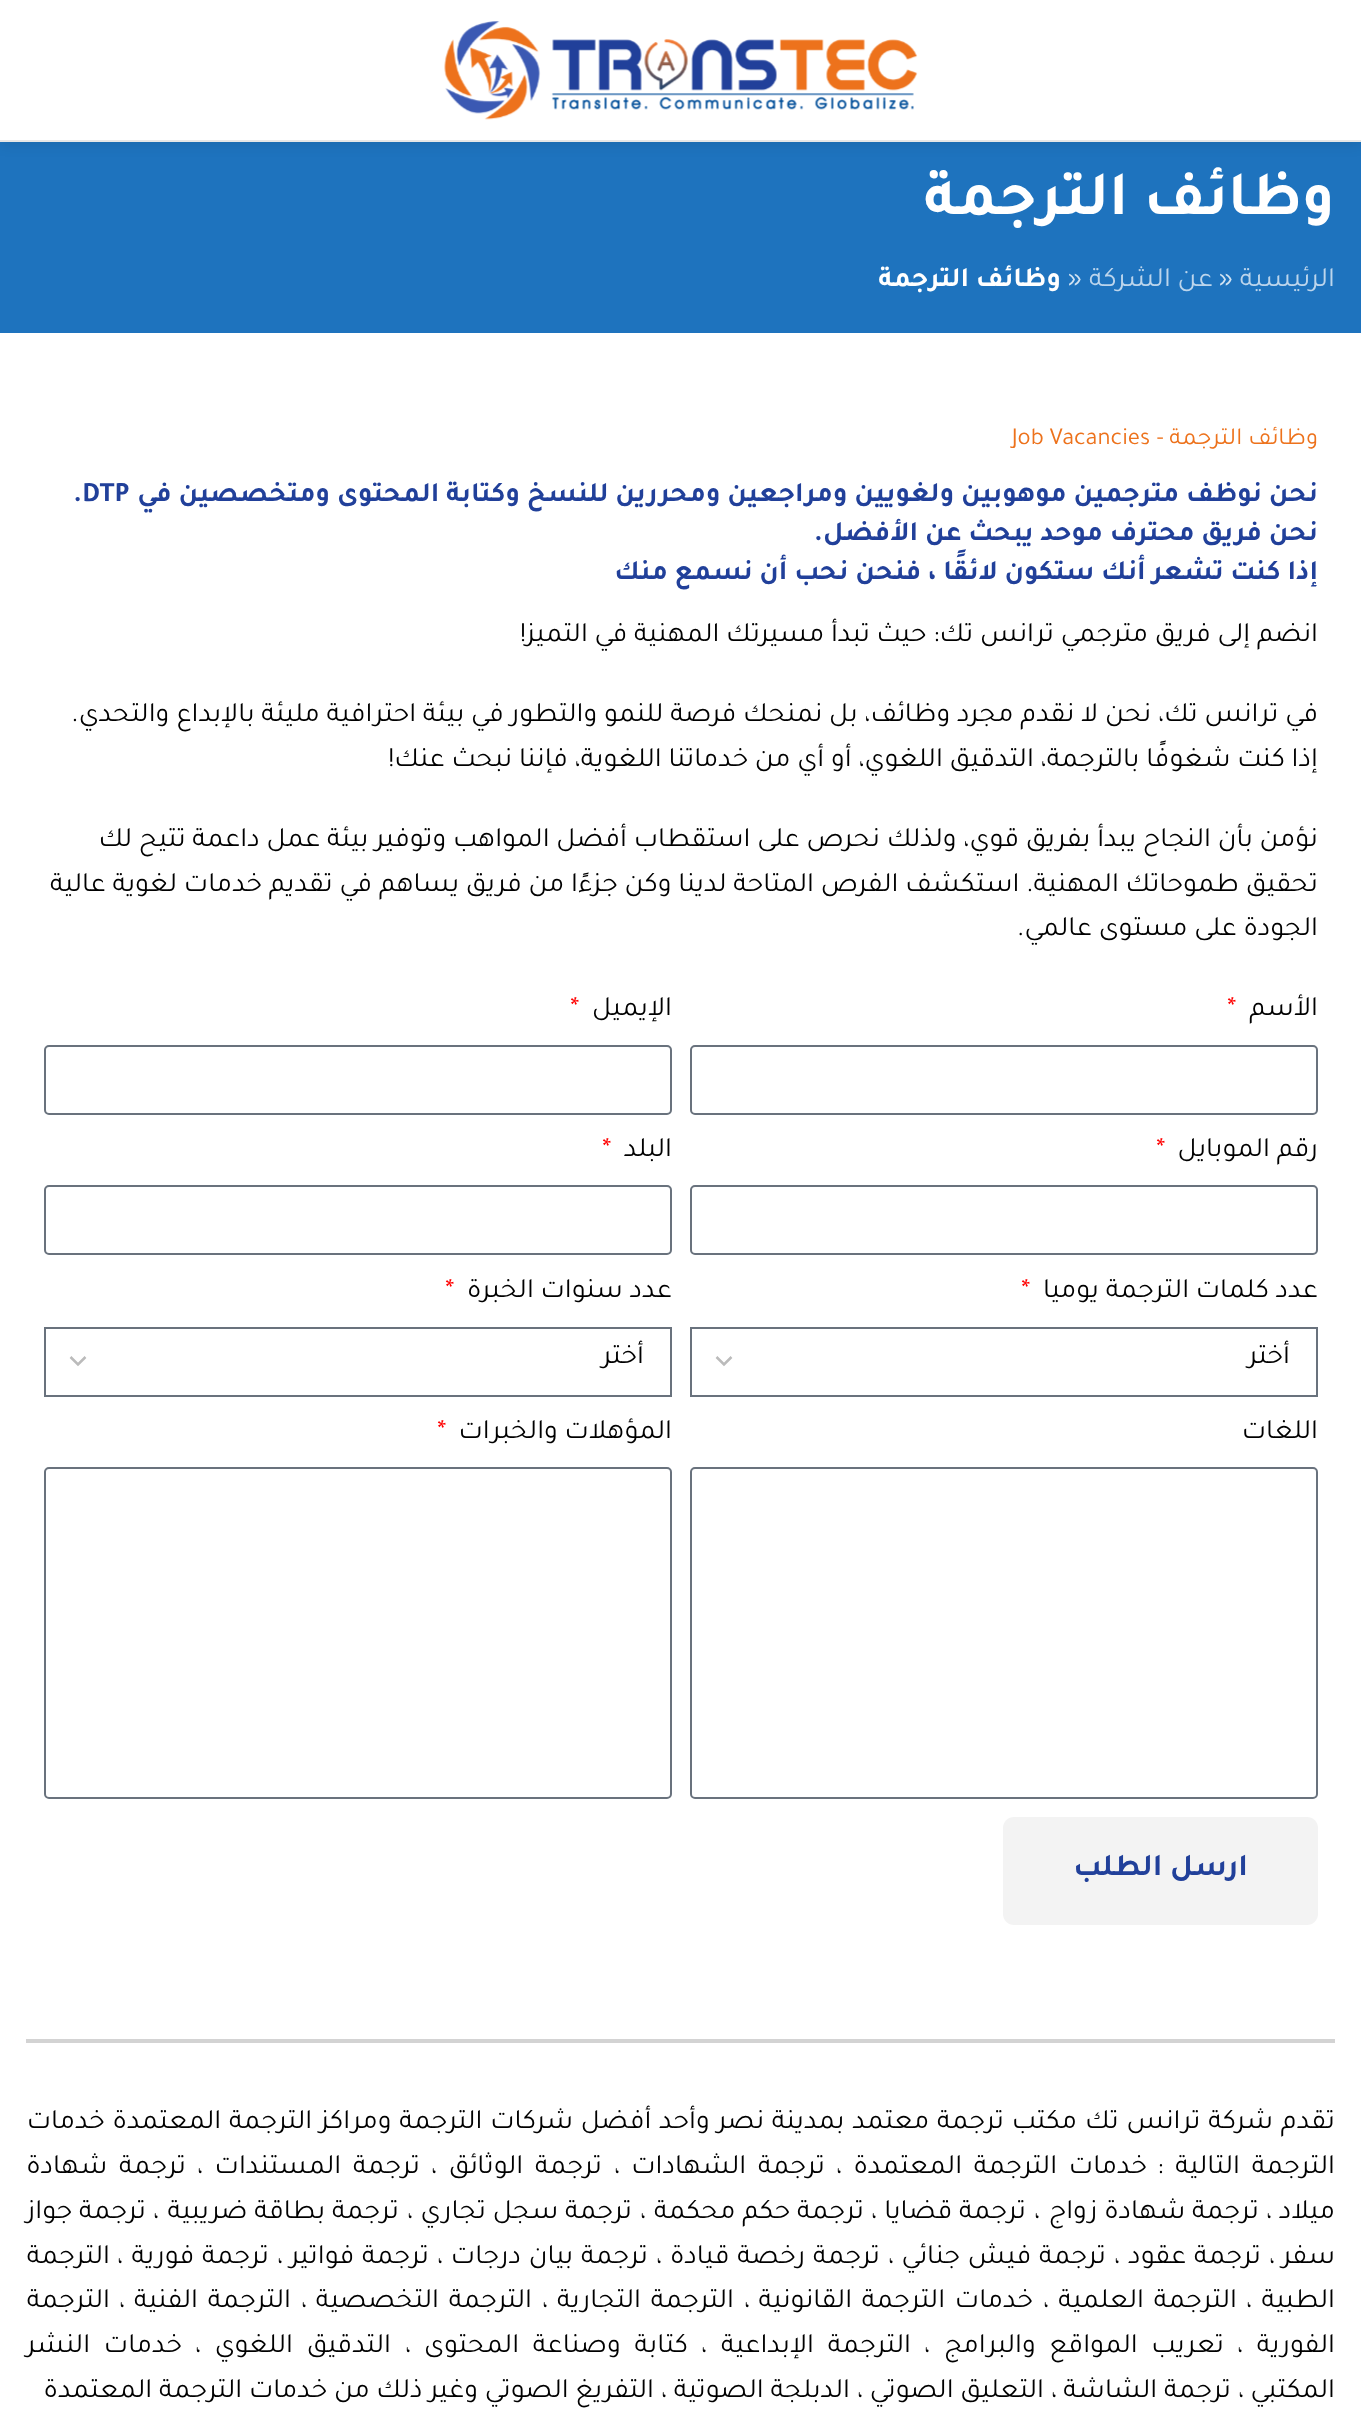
async function draw(canvas) {
  canvas.width = 1361;
  canvas.height = 2409;
  const ctx = canvas.getContext('2d');
  ctx.miterLimit = 4;
  ctx.fontKerning = 'normal';
  function label(s, x, y, font, color) {
    ctx.font = font;
    ctx.fillStyle = color;
    ctx.fillText(s, x, y);
  }
  function rect(x, y, w, h, color) {
    ctx.fillStyle = color;
    ctx.fillRect(x, y, w, h);
  }
  function roundedRect(x, y, w, h, r, color) {
    ctx.fillStyle = color;
    ctx.beginPath();
    ctx.roundRect(x, y, w, h, r);
    ctx.fill();
  }
  async function image(src, x, y, w, h) {
    const img = new Image();
    img.src = src;
    await img.decode();
    ctx.drawImage(img, x, y, w, h);
  }
  let path;

  rect(0, 0, 1361, 2409, '#fff');
  rect(0, 142, 1361, 191, '#1e73be');
  ctx.fillStyle = '#0000001a';
  ctx.filter = 'blur(7px)';
  ctx.beginPath();
  ctx.rect(0, 2, 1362, 142);
  ctx.fill();
  ctx.filter = 'none';
  rect(0, 0, 1361, 140, '#fff');
  rect(0, 140, 1361, 2, '#e6e6e6');
  await image('assets/img1.png', 444, 21, 474, 99);
  ctx.direction = 'rtl';
  label('وظائف الترجمة', 1335, 214, 'bold 63px Tajawal', '#fff');
  label('الرئيسية', 1335, 286, '28px Tajawal', '#bcd5ec');
  ctx.direction = 'ltr';
  label('»', 1219, 286, '28px Tajawal', '#d2e3f2');
  ctx.direction = 'rtl';
  label('عن الشركة', 1213, 286, '28px Tajawal', '#bcd5ec');
  ctx.direction = 'ltr';
  label('»', 1068, 286, '28px Tajawal', '#d2e3f2');
  ctx.direction = 'rtl';
  label('وظائف الترجمة', 1061, 286, 'bold 28px Tajawal', '#fff');
  label('وظائف الترجمة -', 1318, 444, '24.5px Tajawal', '#ed721c');
  ctx.direction = 'ltr';
  label('Job Vacancies', 1012, 444, '24.5px Tajawal', '#ed721c');
  ctx.direction = 'rtl';
  label('نحن نوظف مترجمين موهوبين ولغويين ومراجعين ومحررين للنسخ وكتابة المحتوى ومتخصصين في', 1318, 501, 'bold 28px Tajawal', '#21409a');
  ctx.direction = 'ltr';
  label('.DTP', 73, 501, 'bold 28px Tajawal', '#21409a');
  ctx.direction = 'rtl';
  label('نحن فريق محترف موحد يبحث عن الأفضل.', 1318, 540, 'bold 28px Tajawal', '#21409a');
  label('إذا كنت تشعر أنك ستكون لائقًا ، فنحن نحب أن نسمع منك', 1318, 579, 'bold 28px Tajawal', '#21409a');
  label('انضم إلى فريق مترجمي ترانس تك: حيث تبدأ مسيرتك المهنية في التميز!', 1318, 641, '28px Tajawal', '#000');
  label('في ترانس تك، نحن لا نقدم مجرد وظائف، بل نمنحك فرصة للنمو والتطور في بيئة احترافية مليئة بالإبداع والتحدي.', 1318, 721, '28px Tajawal', '#000');
  label('إذا كنت شغوفًا بالترجمة، التدقيق اللغوي، أو أي من خدماتنا اللغوية، فإننا نبحث عنك!', 1318, 766, '28px Tajawal', '#000');
  label('نؤمن بأن النجاح يبدأ بفريق قوي، ولذلك نحرص على استقطاب أفضل المواهب وتوفير بيئة عمل داعمة تتيح لك', 1318, 846, '28px Tajawal', '#000');
  label('تحقيق طموحاتك المهنية. استكشف الفرص المتاحة لدينا وكن جزءًا من فريق يساهم في تقديم خدمات لغوية عالية', 1318, 891, '28px Tajawal', '#000');
  label('الجودة على مستوى عالمي.', 1318, 935, '28px Tajawal', '#000');
  label('الأسم', 1318, 1015, '28px Tajawal', '#000');
  ctx.direction = 'ltr';
  label('*', 1227, 1015, '28px Tajawal', '#f00');
  ctx.beginPath();
  ctx.roundRect(691, 1046, 626, 68, 4);
  ctx.strokeStyle = '#69727d';
  ctx.lineWidth = 2;
  ctx.stroke();
  ctx.direction = 'rtl';
  label('الإيميل', 672, 1015, '28px Tajawal', '#000');
  ctx.direction = 'ltr';
  label('*', 570, 1015, '28px Tajawal', '#f00');
  ctx.beginPath();
  ctx.roundRect(45, 1046, 626, 68, 4);
  ctx.stroke();
  ctx.direction = 'rtl';
  label('رقم الموبايل', 1318, 1156, '28px Tajawal', '#000');
  ctx.direction = 'ltr';
  label('*', 1156, 1156, '28px Tajawal', '#f00');
  ctx.beginPath();
  ctx.roundRect(691, 1186, 626, 68, 4);
  ctx.stroke();
  ctx.direction = 'rtl';
  label('البلد', 672, 1156, '28px Tajawal', '#000');
  ctx.direction = 'ltr';
  label('*', 602, 1156, '28px Tajawal', '#f00');
  ctx.beginPath();
  ctx.roundRect(45, 1186, 626, 68, 4);
  ctx.stroke();
  ctx.direction = 'rtl';
  label('عدد كلمات الترجمة يوميا', 1318, 1297, '28px Tajawal', '#000');
  ctx.direction = 'ltr';
  label('*', 1021, 1297, '28px Tajawal', '#f00');
  path = new Path2D('M716.5 1357L724 1364.5L731.5 1357');
  ctx.strokeStyle = '#bbb';
  ctx.lineWidth = 2.5;
  ctx.stroke(path);
  ctx.strokeStyle = '#69727d';
  ctx.lineWidth = 2;
  ctx.strokeRect(691, 1328, 626, 68);
  ctx.direction = 'rtl';
  label('أختر', 1290, 1363, '28px Tajawal', '#000');
  label('عدد سنوات الخبرة', 672, 1297, '28px Tajawal', '#000');
  ctx.direction = 'ltr';
  label('*', 445, 1297, '28px Tajawal', '#f00');
  path = new Path2D('M70.5 1357L78 1364.5L85.5 1357');
  ctx.strokeStyle = '#bbb';
  ctx.lineWidth = 2.5;
  ctx.stroke(path);
  ctx.strokeStyle = '#69727d';
  ctx.lineWidth = 2;
  ctx.strokeRect(45, 1328, 626, 68);
  ctx.direction = 'rtl';
  label('أختر', 644, 1363, '28px Tajawal', '#000');
  label('اللغات', 1318, 1438, '28px Tajawal', '#000');
  ctx.beginPath();
  ctx.roundRect(691, 1468, 626, 330, 4);
  ctx.stroke();
  label('المؤهلات والخبرات', 672, 1438, '28px Tajawal', '#000');
  ctx.direction = 'ltr';
  label('*', 437, 1438, '28px Tajawal', '#f00');
  ctx.beginPath();
  ctx.roundRect(45, 1468, 626, 330, 4);
  ctx.stroke();
  roundedRect(1003, 1817, 315, 108, 11, '#f3f3f3');
  ctx.direction = 'rtl';
  label('ارسل الطلب', 1248, 1875, 'bold 31.5px Tajawal', '#21409a');
  rect(26, 2039, 1309, 4, '#d3d3d3');
  label('تقدم', 1335, 2128, '28px Tajawal', '#000');
  ctx.wordSpacing = '1px';
  label('شركة ترانس تك', 1273, 2128, '28px Tajawal', '#000');
  label('مكتب ترجمة معتمد بمدينة نصر وأحد أفضل شركات الترجمة ومراكز الترجمة المعتمدة خدمات', 1077, 2128, '28px Tajawal', '#000');
  ctx.wordSpacing = '5px';
  label('الترجمة التالية :', 1335, 2173, '28px Tajawal', '#000');
  label('خدمات الترجمة المعتمدة', 1147, 2173, '28px Tajawal', '#000');
  ctx.wordSpacing = '0px';
  ctx.direction = 'ltr';
  label('،', 836, 2173, '28px Tajawal', '#000');
  ctx.wordSpacing = '5px';
  ctx.direction = 'rtl';
  label('ترجمة الشهادات', 825, 2173, '28px Tajawal', '#000');
  ctx.wordSpacing = '0px';
  ctx.direction = 'ltr';
  label('،', 614, 2173, '28px Tajawal', '#000');
  ctx.wordSpacing = '5px';
  ctx.direction = 'rtl';
  label('ترجمة الوثائق', 602, 2173, '28px Tajawal', '#000');
  ctx.wordSpacing = '0px';
  ctx.direction = 'ltr';
  label('،', 431, 2173, '28px Tajawal', '#000');
  ctx.wordSpacing = '5px';
  ctx.direction = 'rtl';
  label('ترجمة المستندات', 420, 2173, '28px Tajawal', '#000');
  ctx.wordSpacing = '0px';
  ctx.direction = 'ltr';
  label('،', 197, 2173, '28px Tajawal', '#000');
  ctx.wordSpacing = '5px';
  ctx.direction = 'rtl';
  label('ترجمة شهادة', 186, 2173, '28px Tajawal', '#000');
  ctx.wordSpacing = '0px';
  label('ميلاد', 1335, 2218, '28px Tajawal', '#000');
  ctx.direction = 'ltr';
  label('،', 1266, 2218, '28px Tajawal', '#000');
  ctx.direction = 'rtl';
  label('ترجمة شهادة زواج', 1259, 2218, '28px Tajawal', '#000');
  ctx.direction = 'ltr';
  label('،', 1034, 2218, '28px Tajawal', '#000');
  ctx.direction = 'rtl';
  label('ترجمة قضايا', 1026, 2218, '28px Tajawal', '#000');
  ctx.direction = 'ltr';
  label('،', 871, 2218, '28px Tajawal', '#000');
  ctx.direction = 'rtl';
  label('ترجمة حكم محكمة', 864, 2218, '28px Tajawal', '#000');
  ctx.direction = 'ltr';
  label('،', 640, 2218, '28px Tajawal', '#000');
  ctx.direction = 'rtl';
  label('ترجمة سجل تجاري', 632, 2218, '28px Tajawal', '#000');
  ctx.direction = 'ltr';
  label('،', 407, 2218, '28px Tajawal', '#000');
  ctx.direction = 'rtl';
  label('ترجمة بطاقة ضريبية', 399, 2218, '28px Tajawal', '#000');
  ctx.direction = 'ltr';
  label('،', 153, 2218, '28px Tajawal', '#000');
  ctx.direction = 'rtl';
  label('ترجمة جواز', 146, 2218, '28px Tajawal', '#000');
  label('سفر', 1335, 2263, '28px Tajawal', '#000');
  ctx.direction = 'ltr';
  label('،', 1269, 2263, '28px Tajawal', '#000');
  ctx.wordSpacing = '1px';
  ctx.direction = 'rtl';
  label('ترجمة عقود', 1261, 2263, '28px Tajawal', '#000');
  ctx.wordSpacing = '0px';
  ctx.direction = 'ltr';
  label('،', 1114, 2263, '28px Tajawal', '#000');
  ctx.wordSpacing = '1px';
  ctx.direction = 'rtl';
  label('ترجمة فيش جنائي', 1106, 2263, '28px Tajawal', '#000');
  ctx.wordSpacing = '0px';
  ctx.direction = 'ltr';
  label('،', 888, 2263, '28px Tajawal', '#000');
  ctx.wordSpacing = '1px';
  ctx.direction = 'rtl';
  label('ترجمة رخصة قيادة', 880, 2263, '28px Tajawal', '#000');
  ctx.wordSpacing = '0px';
  ctx.direction = 'ltr';
  label('،', 656, 2263, '28px Tajawal', '#000');
  ctx.wordSpacing = '1px';
  ctx.direction = 'rtl';
  label('ترجمة بيان درجات', 648, 2263, '28px Tajawal', '#000');
  ctx.wordSpacing = '0px';
  ctx.direction = 'ltr';
  label('،', 437, 2263, '28px Tajawal', '#000');
  ctx.wordSpacing = '1px';
  ctx.direction = 'rtl';
  label('ترجمة فواتير', 429, 2263, '28px Tajawal', '#000');
  ctx.wordSpacing = '0px';
  ctx.direction = 'ltr';
  label('،', 277, 2263, '28px Tajawal', '#000');
  ctx.wordSpacing = '1px';
  ctx.direction = 'rtl';
  label('ترجمة فورية', 269, 2263, '28px Tajawal', '#000');
  ctx.wordSpacing = '0px';
  ctx.direction = 'ltr';
  label('،', 117, 2263, '28px Tajawal', '#000');
  ctx.direction = 'rtl';
  label('الترجمة', 110, 2263, '28px Tajawal', '#000');
  label('الطبية', 1335, 2307, '28px Tajawal', '#000');
  ctx.direction = 'ltr';
  label('،', 1246, 2307, '28px Tajawal', '#000');
  ctx.wordSpacing = '3px';
  ctx.direction = 'rtl';
  label('الترجمة العلمية', 1237, 2307, '28px Tajawal', '#000');
  ctx.wordSpacing = '0px';
  ctx.direction = 'ltr';
  label('،', 1043, 2307, '28px Tajawal', '#000');
  ctx.wordSpacing = '3px';
  ctx.direction = 'rtl';
  label('خدمات الترجمة القانونية', 1033, 2307, '28px Tajawal', '#000');
  ctx.wordSpacing = '0px';
  ctx.direction = 'ltr';
  label('،', 744, 2307, '28px Tajawal', '#000');
  ctx.wordSpacing = '3px';
  ctx.direction = 'rtl';
  label('الترجمة التجارية', 734, 2307, '28px Tajawal', '#000');
  ctx.wordSpacing = '0px';
  ctx.direction = 'ltr';
  label('،', 542, 2307, '28px Tajawal', '#000');
  ctx.wordSpacing = '3px';
  ctx.direction = 'rtl';
  label('الترجمة التخصصية', 532, 2307, '28px Tajawal', '#000');
  ctx.wordSpacing = '0px';
  ctx.direction = 'ltr';
  label('،', 301, 2307, '28px Tajawal', '#000');
  ctx.wordSpacing = '3px';
  ctx.direction = 'rtl';
  label('الترجمة الفنية', 291, 2307, '28px Tajawal', '#000');
  ctx.wordSpacing = '0px';
  ctx.direction = 'ltr';
  label('،', 119, 2307, '28px Tajawal', '#000');
  ctx.direction = 'rtl';
  label('الترجمة', 110, 2307, '28px Tajawal', '#000');
  label('الفورية', 1335, 2352, '28px Tajawal', '#000');
  ctx.direction = 'ltr';
  label('،', 1237, 2352, '28px Tajawal', '#000');
  ctx.wordSpacing = '7px';
  ctx.direction = 'rtl';
  label('تعريب المواقع والبرامج', 1224, 2352, '28px Tajawal', '#000');
  ctx.wordSpacing = '0px';
  ctx.direction = 'ltr';
  label('،', 924, 2352, '28px Tajawal', '#000');
  ctx.wordSpacing = '7px';
  ctx.direction = 'rtl';
  label('الترجمة الإبداعية', 911, 2352, '28px Tajawal', '#000');
  ctx.wordSpacing = '0px';
  ctx.direction = 'ltr';
  label('،', 701, 2352, '28px Tajawal', '#000');
  ctx.wordSpacing = '7px';
  ctx.direction = 'rtl';
  label('كتابة وصناعة المحتوى', 688, 2352, '28px Tajawal', '#000');
  ctx.wordSpacing = '0px';
  ctx.direction = 'ltr';
  label('،', 405, 2352, '28px Tajawal', '#000');
  ctx.wordSpacing = '7px';
  ctx.direction = 'rtl';
  label('التدقيق اللغوي', 391, 2352, '28px Tajawal', '#000');
  ctx.wordSpacing = '0px';
  ctx.direction = 'ltr';
  label('،', 195, 2352, '28px Tajawal', '#000');
  ctx.wordSpacing = '7px';
  ctx.direction = 'rtl';
  label('خدمات النشر', 182, 2352, '28px Tajawal', '#000');
  ctx.wordSpacing = '0px';
  label('المكتبي', 1335, 2397, '28px Tajawal', '#000');
  ctx.direction = 'ltr';
  label('،', 1238, 2397, '28px Tajawal', '#000');
  ctx.direction = 'rtl';
  label('ترجمة الشاشة', 1231, 2397, '28px Tajawal', '#000');
  ctx.direction = 'ltr';
  label('،', 1051, 2397, '28px Tajawal', '#000');
  ctx.direction = 'rtl';
  label('التعليق الصوتي', 1044, 2397, '28px Tajawal', '#000');
  ctx.direction = 'ltr';
  label('،', 857, 2397, '28px Tajawal', '#000');
  ctx.direction = 'rtl';
  label('الدبلجة الصوتية', 850, 2397, '28px Tajawal', '#000');
  ctx.direction = 'ltr';
  label('،', 661, 2397, '28px Tajawal', '#000');
  ctx.direction = 'rtl';
  label('التفريغ الصوتي', 654, 2397, '28px Tajawal', '#000');
  label('وغير ذلك من خدمات الترجمة المعتمدة', 478, 2397, '28px Tajawal', '#000');
}

draw(document.querySelector('canvas'));
